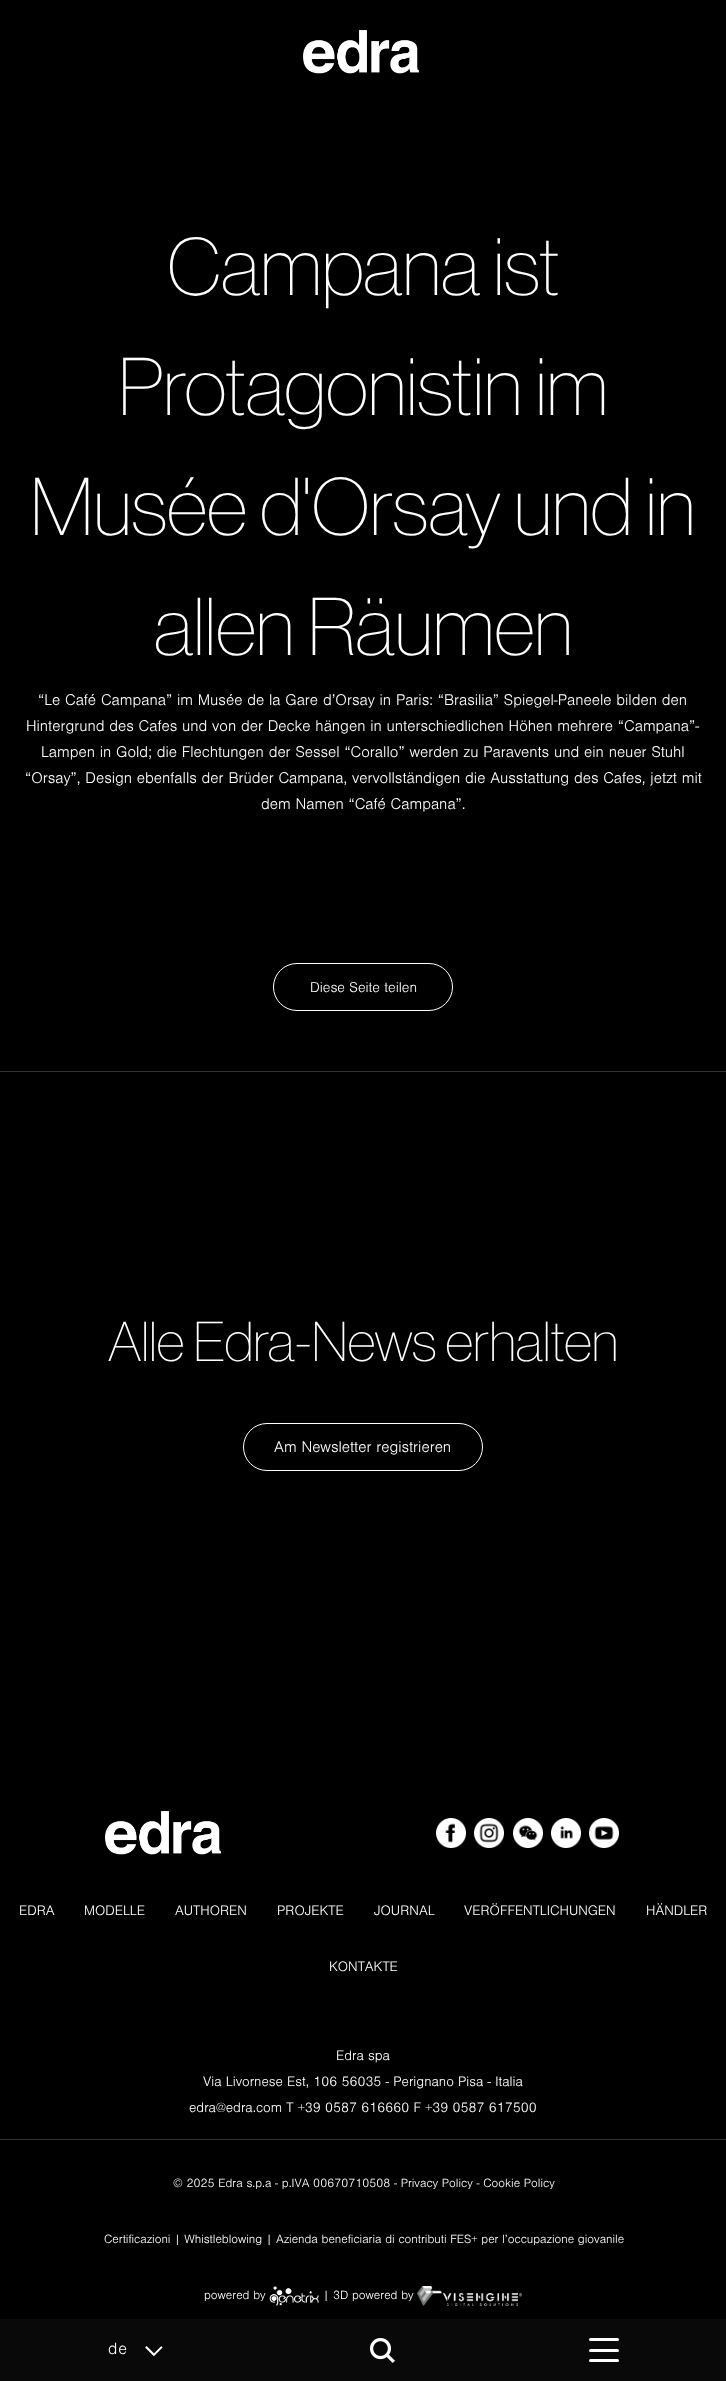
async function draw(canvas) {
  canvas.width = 726;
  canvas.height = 2381;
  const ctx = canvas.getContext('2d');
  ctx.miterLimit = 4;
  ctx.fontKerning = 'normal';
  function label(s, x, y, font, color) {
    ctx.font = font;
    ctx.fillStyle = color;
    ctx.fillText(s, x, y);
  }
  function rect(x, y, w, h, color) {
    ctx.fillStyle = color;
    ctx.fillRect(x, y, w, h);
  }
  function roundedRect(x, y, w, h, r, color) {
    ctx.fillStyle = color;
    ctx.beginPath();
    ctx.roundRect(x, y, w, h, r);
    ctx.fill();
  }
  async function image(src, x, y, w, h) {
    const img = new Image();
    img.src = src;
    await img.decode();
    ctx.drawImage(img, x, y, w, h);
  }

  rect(0, 0, 726, 2381, '#000');
  await image('assets/img1.png', 303, 30, 116, 44);
  label('Campana ist', 167, 295, '300 80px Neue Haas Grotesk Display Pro', '#fff');
  label('Protagonistin im', 118, 415, '300 80px Neue Haas Grotesk Display Pro', '#fff');
  label('Musée d\'Orsay und in', 30, 535, '300 80px Neue Haas Grotesk Display Pro', '#fff');
  label('allen Räumen', 154, 655, '300 80px Neue Haas Grotesk Display Pro', '#fff');
  label('“Le Café Campana” im Musée de la Gare d’Orsay in Paris: “Brasilia” Spiegel-Paneele bilden den', 38, 705, '16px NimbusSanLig', '#fff');
  label('Hintergrund des Cafes und von der Decke hängen in unterschiedlichen Höhen mehrere “Campana”-', 26, 731, '16px NimbusSanLig', '#fff');
  label('Lampen in Gold; die Flechtungen der Sessel “Corallo” werden zu Paravents und ein neuer Stuhl', 41, 757, '16px NimbusSanLig', '#fff');
  label('“Orsay”, Design ebenfalls der Brüder Campana, vervollständigen die Ausstattung des Cafes, jetzt mit', 25, 783, '16px NimbusSanLig', '#fff');
  label('dem Namen “Café Campana”.', 261, 809, '16px NimbusSanLig', '#fff');
  ctx.beginPath();
  ctx.roundRect(273.5, 963.5, 179, 47, 23.5);
  ctx.strokeStyle = '#fff';
  ctx.stroke();
  label('Diese Seite teilen', 310, 992, '14.75px NimbusSanLig', '#fff');
  rect(0, 1071, 726, 1, '#333');
  label('Alle Edra-News erhalten', 108, 1361, '300 55px Neue Haas Grotesk Display Pro', '#fff');
  ctx.beginPath();
  ctx.roundRect(243.5, 1423.5, 239, 47, 23.5);
  ctx.stroke();
  label('Am Newsletter registrieren', 274, 1452, '16px NimbusSanLig', '#fff');
  await image('assets/img2.png', 105, 1811, 116, 44);
  await image('assets/img3.png', 436, 1818, 30, 30);
  await image('assets/img4.png', 474, 1818, 30, 30);
  await image('assets/img5.png', 513, 1818, 30, 30);
  await image('assets/img6.png', 551, 1818, 30, 30);
  await image('assets/img7.png', 589, 1818, 30, 30);
  label('EDRA', 19, 1915, '14.25px NimbusSanLig', '#fff');
  label('MODELLE', 84, 1915, '14.25px NimbusSanLig', '#fff');
  label('AUTHOREN', 175, 1915, '14.25px NimbusSanLig', '#fff');
  label('PROJEKTE', 277, 1915, '14.25px NimbusSanLig', '#fff');
  label('JOURNAL', 374, 1915, '14.25px NimbusSanLig', '#fff');
  label('VERÖFFENTLICHUNGEN', 464, 1915, '14.25px NimbusSanLig', '#fff');
  label('HÄNDLER', 646, 1915, '14.25px NimbusSanLig', '#fff');
  label('KONTAKTE', 329, 1971, '14.25px NimbusSanLig', '#fff');
  label('Edra spa', 336, 2060, '14.25px NimbusSanLig', '#fff');
  label('Via Livornese Est, 106 56035 - Perignano Pisa - Italia', 203, 2086, '14.25px NimbusSanLig', '#fff');
  label('edra@edra.com T +39 0587 616660 F +39 0587 617500', 189, 2112, '14.25px NimbusSanLig', '#fff');
  rect(0, 2139, 726, 1, '#333');
  label('© 2025 Edra s.p.a - p.IVA 00670710508 - Privacy Policy - Cookie Policy', 173, 2187, '12.5px NimbusSanLig', '#fff');
  label('Certificazioni | Whistleblowing | Azienda beneficiaria di contributi FES+ per l’occupazione giovanile', 104, 2243, '12.5px NimbusSanLig', '#fff');
  label('powered by', 204, 2299, '12.5px NimbusSanLig', '#fff');
  await image('assets/img8.png', 269, 2286, 50, 20);
  label('| 3D powered by', 323, 2299, '12.5px NimbusSanLig', '#fff');
  await image('assets/img9.png', 417, 2286, 105, 20);
  rect(0, 2319, 726, 62, '#090909');
  ctx.letterSpacing = '1px';
  label('de', 108, 2354, '17px NimbusSanLig', '#fff');
  await image('assets/img10.png', 145, 2346, 18, 11);
  await image('assets/img11.png', 370, 2338, 25, 25);
  roundedRect(589, 2338, 30, 3, 1.5, '#fff');
  roundedRect(589, 2349, 30, 3, 1.5, '#fff');
  roundedRect(589, 2359, 30, 3, 1.5, '#fff');
}

draw(document.querySelector('canvas'));
